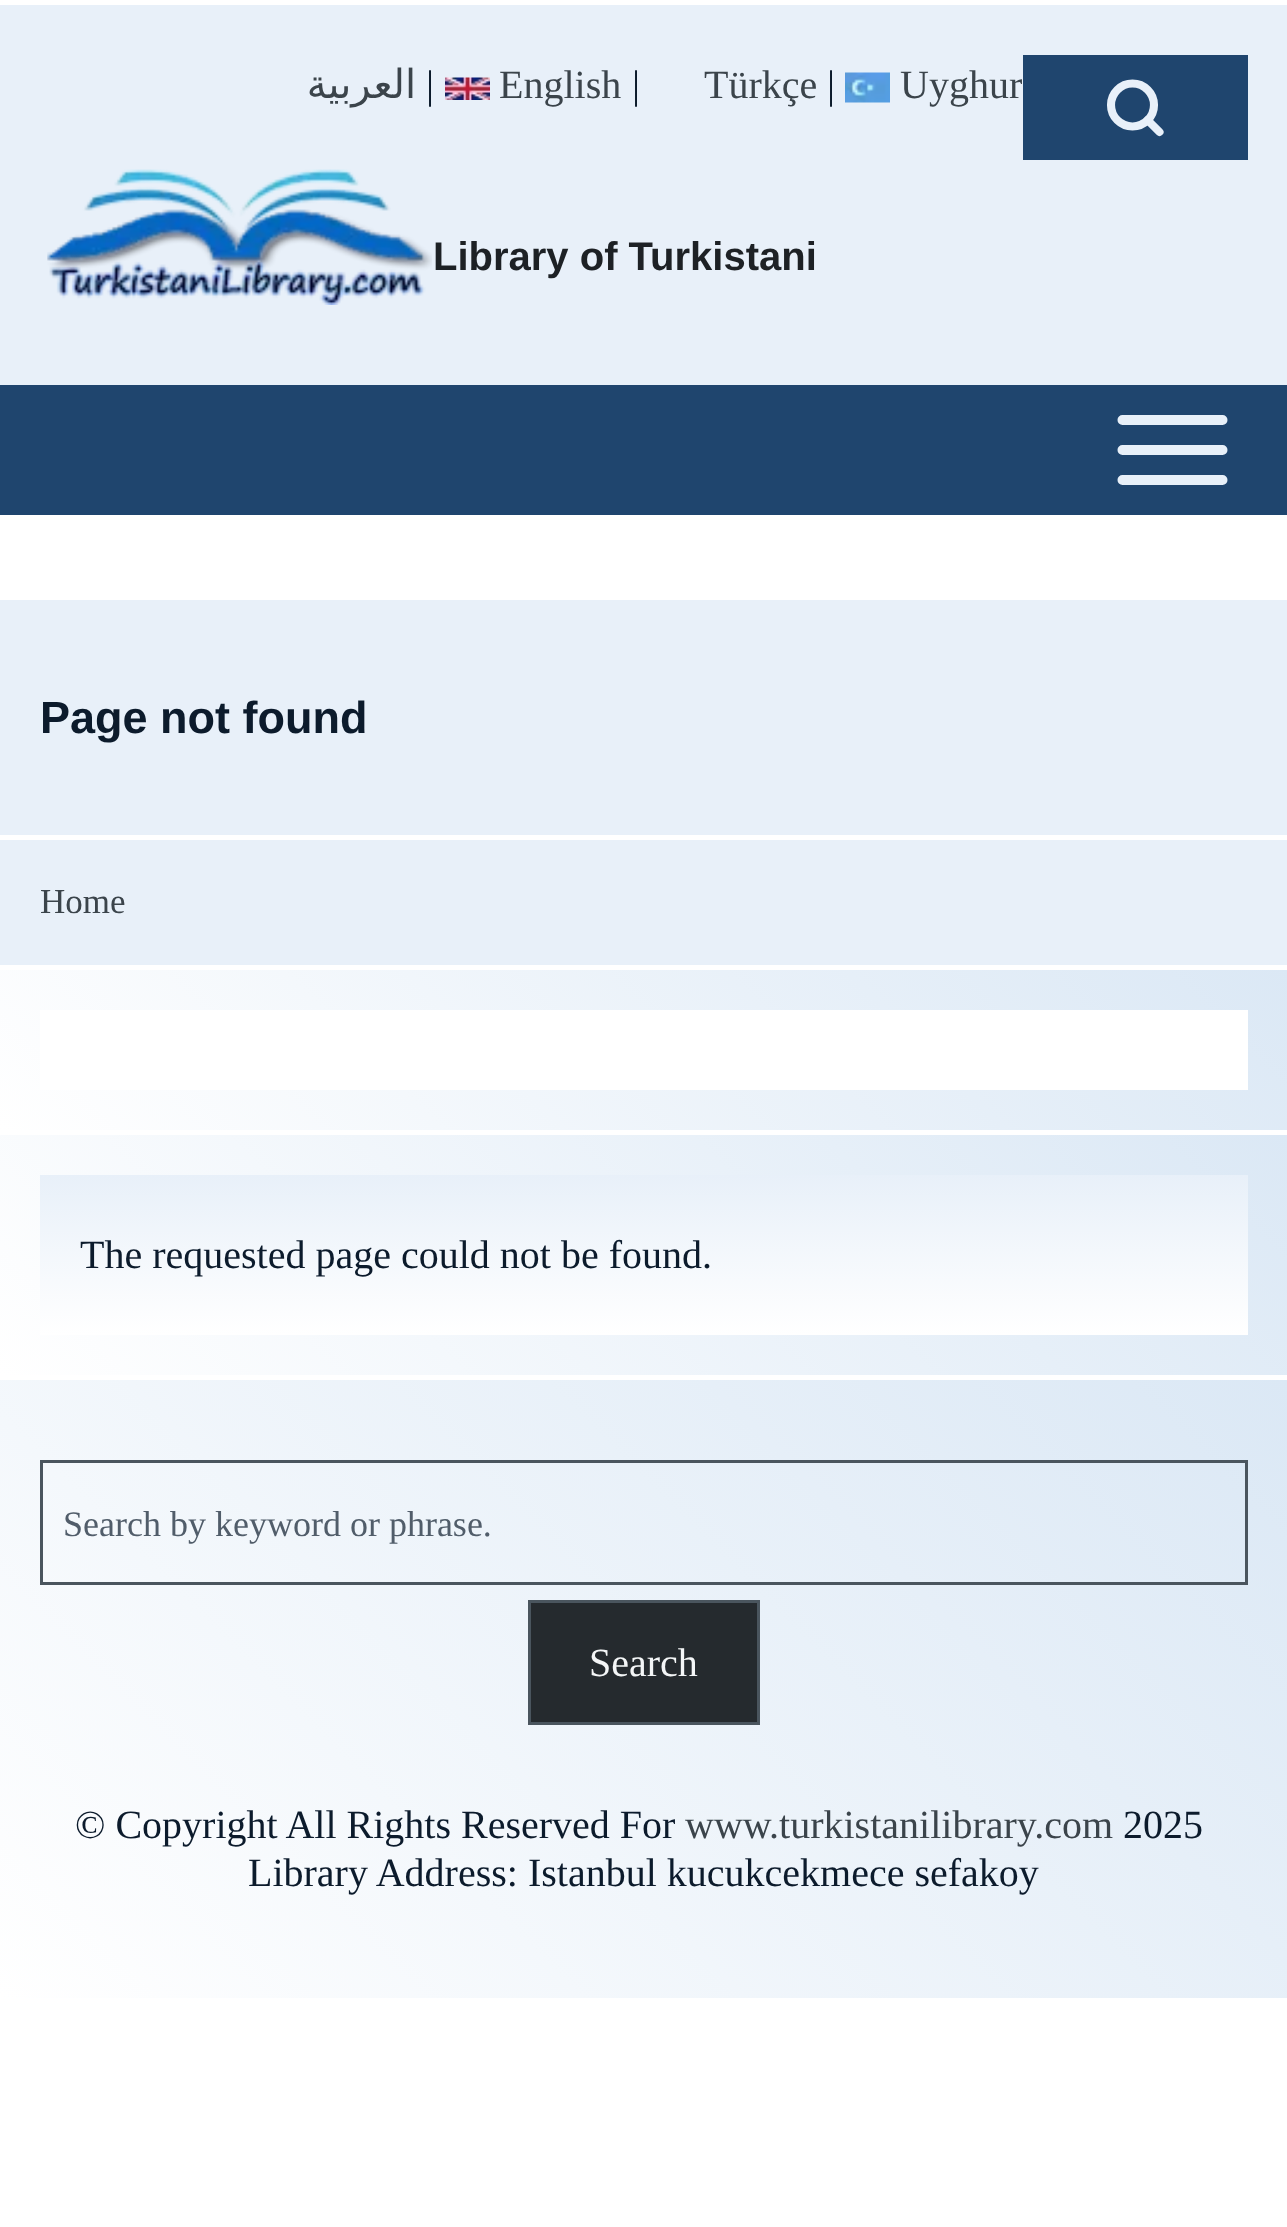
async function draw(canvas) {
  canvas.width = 1287;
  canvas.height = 2227;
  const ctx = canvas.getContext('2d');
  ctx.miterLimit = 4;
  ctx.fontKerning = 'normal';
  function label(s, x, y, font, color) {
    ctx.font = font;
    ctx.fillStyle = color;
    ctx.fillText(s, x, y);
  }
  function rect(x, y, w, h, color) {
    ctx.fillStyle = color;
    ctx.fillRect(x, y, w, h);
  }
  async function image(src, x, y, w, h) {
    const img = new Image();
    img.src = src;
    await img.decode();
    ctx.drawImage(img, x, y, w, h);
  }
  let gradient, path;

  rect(0, 0, 1287, 2227, '#fff');
  rect(0, 5, 1287, 960, '#e8f0f9');
  ctx.direction = 'rtl';
  label('العربية', 416, 98, '40px DejaVu Sans', '#3b444b');
  ctx.direction = 'ltr';
  label('|', 426, 98, '40px Liberation Serif', '#0c1b2c');
  await image('assets/img1.png', 445, 77, 45, 23);
  label('English', 499, 98, '40px Liberation Serif', '#3b444b');
  label('|', 632, 98, '40px Liberation Serif', '#0c1b2c');
  label('Türkçe', 704, 98, '40px Liberation Serif', '#3b444b');
  label('|', 827, 98, '40px Liberation Serif', '#0c1b2c');
  await image('assets/img2.png', 845, 72, 45, 31);
  label('Uyghur', 900, 98, '40px Liberation Serif', '#3b444b');
  rect(1023, 55, 225, 105, '#1f456e');
  ctx.beginPath();
  ctx.arc(1132.5, 105, 21.5, 0, 2 * Math.PI);
  ctx.strokeStyle = '#e8f0f9';
  ctx.lineWidth = 8.1;
  ctx.stroke();
  path = new Path2D('M1159.5 132L1147.5 120');
  ctx.lineCap = 'round';
  ctx.lineJoin = 'round';
  ctx.stroke(path);
  await image('assets/img3.png', 47, 169, 385, 136);
  label('Library of Turkistani', 433, 270, 'bold 40px Liberation Sans', '#1d2125');
  rect(0, 385, 1287, 130, '#1f456e');
  path = new Path2D('M1122.5 480H1222.5Z');
  ctx.lineWidth = 10;
  ctx.stroke(path);
  path = new Path2D('M1122.5 450H1222.5Z');
  ctx.stroke(path);
  path = new Path2D('M1122.5 420H1222.5Z');
  ctx.stroke(path);
  rect(0, 515, 1287, 85, '#fff');
  rect(0, 835, 1287, 5, '#fff');
  label('Page not found', 40, 733, 'bold 45px Liberation Sans', '#0c1b2c');
  label('Home', 40, 913, '35px Liberation Serif', '#3b444b');
  gradient = ctx.createLinearGradient(282, 1412, 1006, 688);
  gradient.addColorStop(0, '#fff');
  gradient.addColorStop(1, '#dbe8f5');
  ctx.fillStyle = gradient;
  ctx.fillRect(0, 970, 1287, 160);
  rect(40, 1010, 1208, 80, '#fff');
  gradient = ctx.createLinearGradient(262, 1637, 1026, 873);
  gradient.addColorStop(0, '#fff');
  gradient.addColorStop(1, '#dbe8f5');
  ctx.fillStyle = gradient;
  ctx.fillRect(0, 1135, 1287, 240);
  gradient = ctx.createLinearGradient(644, 1335, 644, 1175);
  gradient.addColorStop(0, '#fff');
  gradient.addColorStop(1, '#e8f0f9');
  ctx.fillStyle = gradient;
  ctx.fillRect(40, 1175, 1208, 160);
  label('The requested page could not be found.', 80, 1268, '40px Liberation Serif', '#0c1b2c');
  gradient = ctx.createLinearGradient(168, 2165, 1120, 1213);
  gradient.addColorStop(0, '#fff');
  gradient.addColorStop(1, '#dbe8f5');
  ctx.fillStyle = gradient;
  ctx.fillRect(0, 1380, 1287, 618);
  ctx.strokeStyle = '#4a555e';
  ctx.lineWidth = 3;
  ctx.lineJoin = 'miter';
  ctx.strokeRect(41.5, 1461.5, 1205, 122);
  label('Search by keyword or phrase.', 63, 1536, '36px Liberation Serif', '#515d6a');
  ctx.fillStyle = '#252a2e';
  ctx.beginPath();
  ctx.rect(529.5, 1601.5, 229, 122);
  ctx.fill();
  ctx.stroke();
  label('Search', 589, 1676, '40px Liberation Serif', '#f4f6f7');
  label('© Copyright All Rights Reserved For', 75, 1838, '40px Liberation Serif', '#0c1b2c');
  label('www.turkistanilibrary.com', 685, 1838, '40px Liberation Serif', '#3b444b');
  label('2025', 1123, 1838, '40px Liberation Serif', '#0c1b2c');
  label('Library Address: Istanbul kucukcekmece sefakoy', 248, 1886, '40px Liberation Serif', '#0c1b2c');
}

draw(document.querySelector('canvas'));
